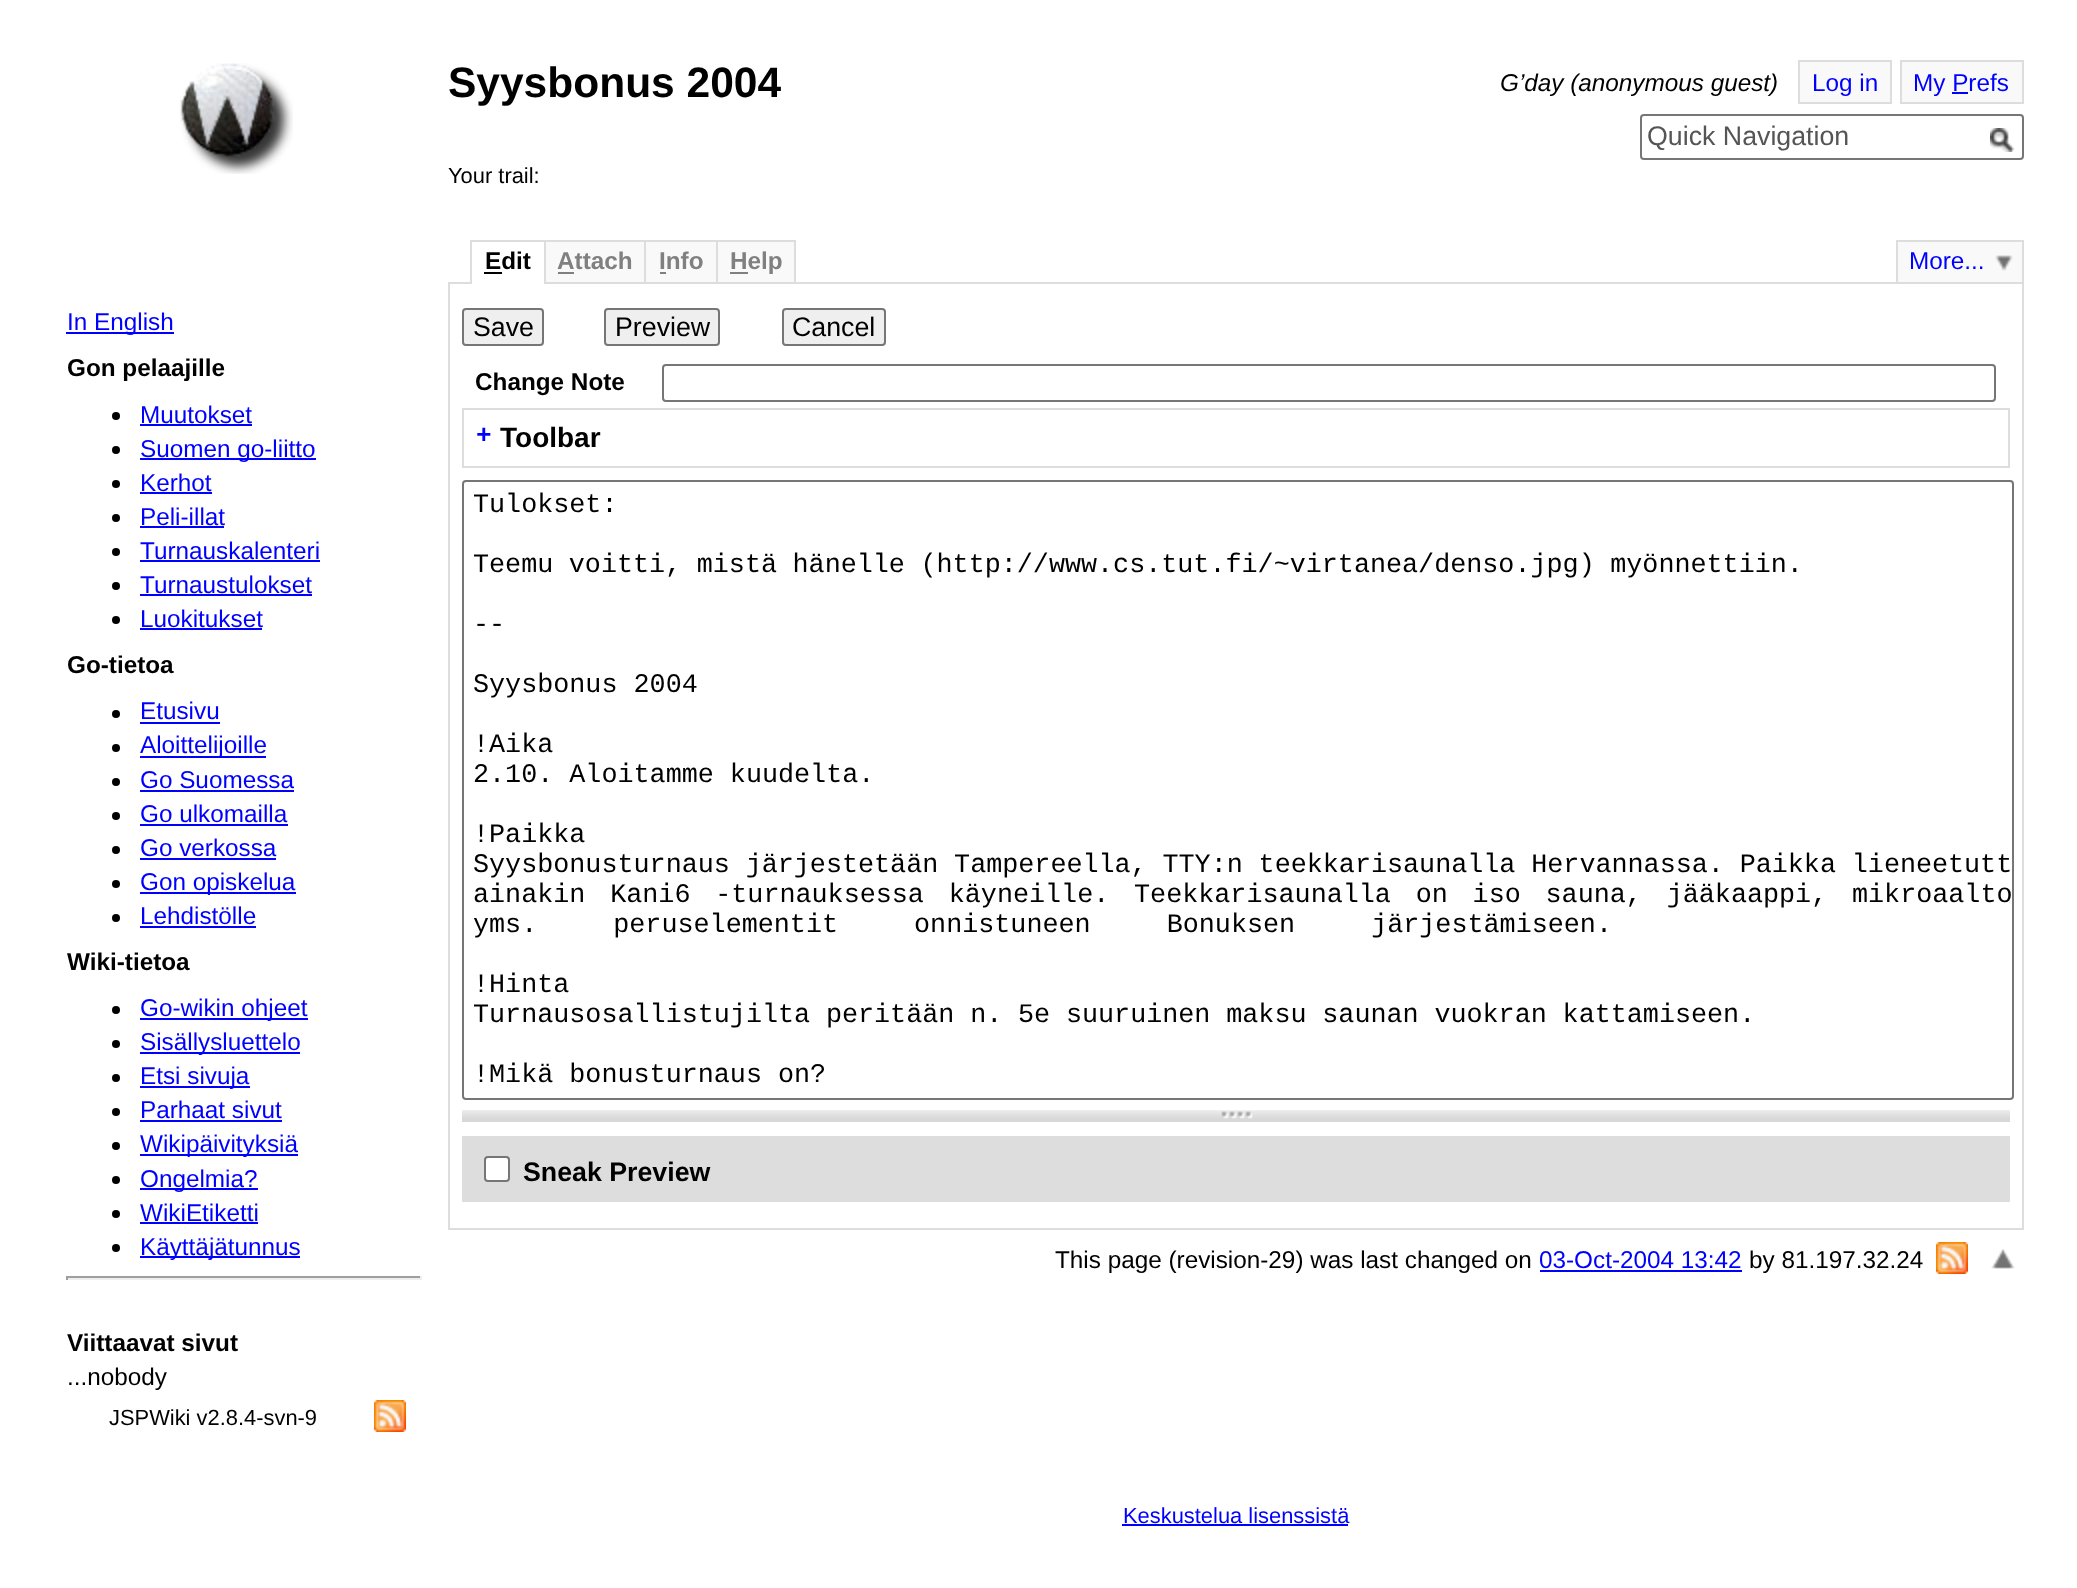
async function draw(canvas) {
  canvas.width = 2077;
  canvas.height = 1588;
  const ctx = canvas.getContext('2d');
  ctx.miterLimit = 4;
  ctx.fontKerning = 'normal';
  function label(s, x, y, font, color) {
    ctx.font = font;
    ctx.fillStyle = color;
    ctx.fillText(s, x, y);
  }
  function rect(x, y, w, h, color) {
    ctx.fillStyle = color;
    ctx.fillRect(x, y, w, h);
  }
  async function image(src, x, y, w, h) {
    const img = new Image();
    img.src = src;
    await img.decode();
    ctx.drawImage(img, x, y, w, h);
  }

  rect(0, 0, 2077, 1588, '#fff');
  await image('assets/img1.png', 179, 63, 114, 111);
  label('Syysbonus 2004', 448, 97, 'bold 42.5px Liberation Sans', '#000');
  label('G’day (anonymous guest)', 1500, 91, 'italic 24.3px Liberation Sans', '#000');
  ctx.fillStyle = '#f9f9f9';
  ctx.beginPath();
  ctx.rect(1799, 61, 92, 42);
  ctx.fill();
  ctx.strokeStyle = '#ddd';
  ctx.lineWidth = 2;
  ctx.stroke();
  label('Log in', 1812, 91, '24.3px Liberation Sans', '#00f');
  rect(1902, 62, 120, 40, '#f9f9f9');
  label('My Prefs', 1913, 91, '24.3px Liberation Sans', '#00f');
  rect(1900, 60, 124, 2, '#ddd');
  rect(1900, 102, 68, 2, '#ddd');
  rect(1900, 60, 2, 44, '#ddd');
  rect(2022, 60, 2, 44, '#ddd');
  rect(1968, 102, 56, 2, '#ddd');
  rect(1952, 92, 16, 2, '#00f');
  ctx.beginPath();
  ctx.roundRect(1641, 115, 382, 44, 3);
  ctx.strokeStyle = '#767676';
  ctx.stroke();
  label('Quick Navigation', 1647, 145, '26.75px Liberation Sans', '#555');
  await image('assets/img2.png', 1990, 128, 24, 24);
  label('Your trail:', 448, 183, '21.9px Liberation Sans', '#000');
  rect(66, 332, 108, 2, '#00f');
  label('In English', 67, 330, '24.3px Liberation Sans', '#00f');
  label('Gon pelaajille', 67, 376, 'bold 24.3px Liberation Sans', '#000');
  ctx.beginPath();
  ctx.arc(116, 416, 4, 0, 2 * Math.PI);
  ctx.fill();
  label('Muutokset', 140, 423, '24.3px Liberation Sans', '#00f');
  rect(140, 424, 112, 2, '#00f');
  ctx.fillStyle = '#000';
  ctx.beginPath();
  ctx.arc(116, 450, 4, 0, 2 * Math.PI);
  ctx.fill();
  rect(140, 458, 176, 2, '#00f');
  label('Suomen go-liitto', 140, 457, '24.3px Liberation Sans', '#00f');
  ctx.fillStyle = '#000';
  ctx.beginPath();
  ctx.arc(116, 484, 4, 0, 2 * Math.PI);
  ctx.fill();
  label('Kerhot', 140, 491, '24.3px Liberation Sans', '#00f');
  rect(140, 492, 72, 2, '#00f');
  ctx.fillStyle = '#000';
  ctx.beginPath();
  ctx.arc(116, 518, 4, 0, 2 * Math.PI);
  ctx.fill();
  label('Peli-illat', 140, 525, '24.3px Liberation Sans', '#00f');
  rect(140, 526, 84, 2, '#00f');
  ctx.fillStyle = '#000';
  ctx.beginPath();
  ctx.arc(116, 552, 4, 0, 2 * Math.PI);
  ctx.fill();
  label('Turnauskalenteri', 140, 559, '24.3px Liberation Sans', '#00f');
  rect(140, 560, 180, 2, '#00f');
  ctx.fillStyle = '#000';
  ctx.beginPath();
  ctx.arc(116, 586, 4, 0, 2 * Math.PI);
  ctx.fill();
  label('Turnaustulokset', 140, 593, '24.3px Liberation Sans', '#00f');
  rect(140, 594, 172, 2, '#00f');
  ctx.fillStyle = '#000';
  ctx.beginPath();
  ctx.arc(116, 620, 4, 0, 2 * Math.PI);
  ctx.fill();
  label('Luokitukset', 140, 627, '24.3px Liberation Sans', '#00f');
  rect(140, 628, 122, 2, '#00f');
  label('Go-tietoa', 67, 673, 'bold 24.3px Liberation Sans', '#000');
  ctx.beginPath();
  ctx.arc(116, 714, 4, 0, 2 * Math.PI);
  ctx.fill();
  label('Etusivu', 140, 719, '24.3px Liberation Sans', '#00f');
  rect(140, 722, 80, 2, '#00f');
  ctx.fillStyle = '#000';
  ctx.beginPath();
  ctx.arc(116, 748, 4, 0, 2 * Math.PI);
  ctx.fill();
  rect(140, 756, 126, 2, '#00f');
  label('Aloittelijoille', 140, 753, '24.3px Liberation Sans', '#00f');
  ctx.fillStyle = '#000';
  ctx.beginPath();
  ctx.arc(116, 782, 4, 0, 2 * Math.PI);
  ctx.fill();
  label('Go Suomessa', 140, 788, '24.3px Liberation Sans', '#00f');
  rect(140, 790, 154, 2, '#00f');
  ctx.fillStyle = '#000';
  ctx.beginPath();
  ctx.arc(116, 816, 4, 0, 2 * Math.PI);
  ctx.fill();
  label('Go ulkomailla', 140, 822, '24.3px Liberation Sans', '#00f');
  rect(140, 824, 148, 2, '#00f');
  ctx.fillStyle = '#000';
  ctx.beginPath();
  ctx.arc(116, 850, 4, 0, 2 * Math.PI);
  ctx.fill();
  label('Go verkossa', 140, 856, '24.3px Liberation Sans', '#00f');
  rect(140, 858, 136, 2, '#00f');
  ctx.fillStyle = '#000';
  ctx.beginPath();
  ctx.arc(116, 884, 4, 0, 2 * Math.PI);
  ctx.fill();
  rect(140, 892, 156, 2, '#00f');
  label('Gon opiskelua', 140, 890, '24.3px Liberation Sans', '#00f');
  ctx.fillStyle = '#000';
  ctx.beginPath();
  ctx.arc(116, 918, 4, 0, 2 * Math.PI);
  ctx.fill();
  label('Lehdistölle', 140, 924, '24.3px Liberation Sans', '#00f');
  rect(140, 926, 116, 2, '#00f');
  label('Wiki-tietoa', 67, 970, 'bold 24.3px Liberation Sans', '#000');
  ctx.beginPath();
  ctx.arc(116, 1010, 4, 0, 2 * Math.PI);
  ctx.fill();
  rect(140, 1018, 168, 2, '#00f');
  label('Go-wikin ohjeet', 140, 1016, '24.3px Liberation Sans', '#00f');
  ctx.fillStyle = '#000';
  ctx.beginPath();
  ctx.arc(116, 1044, 4, 0, 2 * Math.PI);
  ctx.fill();
  rect(140, 1052, 160, 2, '#00f');
  label('Sisällysluettelo', 140, 1050, '24.3px Liberation Sans', '#00f');
  ctx.fillStyle = '#000';
  ctx.beginPath();
  ctx.arc(116, 1078, 4, 0, 2 * Math.PI);
  ctx.fill();
  rect(140, 1086, 110, 2, '#00f');
  label('Etsi sivuja', 140, 1084, '24.3px Liberation Sans', '#00f');
  ctx.fillStyle = '#000';
  ctx.beginPath();
  ctx.arc(116, 1112, 4, 0, 2 * Math.PI);
  ctx.fill();
  label('Parhaat sivut', 140, 1118, '24.3px Liberation Sans', '#00f');
  rect(140, 1120, 142, 2, '#00f');
  ctx.fillStyle = '#000';
  ctx.beginPath();
  ctx.arc(116, 1146, 4, 0, 2 * Math.PI);
  ctx.fill();
  rect(140, 1154, 158, 2, '#00f');
  label('Wikipäivityksiä', 140, 1152, '24.3px Liberation Sans', '#00f');
  ctx.fillStyle = '#000';
  ctx.beginPath();
  ctx.arc(116, 1180, 4, 0, 2 * Math.PI);
  ctx.fill();
  rect(140, 1188, 118, 2, '#00f');
  label('Ongelmia?', 140, 1187, '24.3px Liberation Sans', '#00f');
  ctx.fillStyle = '#000';
  ctx.beginPath();
  ctx.arc(116, 1214, 4, 0, 2 * Math.PI);
  ctx.fill();
  label('WikiEtiketti', 140, 1221, '24.3px Liberation Sans', '#00f');
  rect(140, 1222, 118, 2, '#00f');
  ctx.fillStyle = '#000';
  ctx.beginPath();
  ctx.arc(116, 1248, 4, 0, 2 * Math.PI);
  ctx.fill();
  rect(140, 1256, 160, 2, '#00f');
  label('Käyttäjätunnus', 140, 1255, '24.3px Liberation Sans', '#00f');
  rect(66, 1276, 356, 2, '#9f9f9f');
  rect(420, 1276, 2, 4, '#eee');
  rect(66, 1278, 356, 2, '#eee');
  rect(66, 1276, 2, 4, '#9f9f9f');
  label('Viittaavat sivut', 67, 1351, 'bold 24.3px Liberation Sans', '#000');
  label('...nobody', 67, 1385, '24.3px Liberation Sans', '#000');
  label('JSPWiki v2.8.4-svn-9', 109, 1425, '21.9px Liberation Sans', '#000');
  await image('assets/img3.png', 374, 1400, 32, 32);
  rect(470, 240, 76, 2, '#ddd');
  ctx.strokeStyle = '#ddd';
  ctx.strokeRect(449, 283, 1574, 946);
  rect(470, 282, 76, 2, '#fff');
  rect(470, 240, 2, 44, '#ddd');
  label('Edit', 485, 269, 'bold 24.3px Liberation Sans', '#000');
  rect(484, 272, 18, 2, '#000');
  ctx.fillStyle = '#f9f9f9';
  ctx.beginPath();
  ctx.rect(545, 241, 100, 42);
  ctx.fill();
  ctx.stroke();
  label('Attach', 557, 269, 'bold 24.3px Liberation Sans', '#808080');
  rect(558, 272, 16, 2, '#808080');
  ctx.fillStyle = '#f9f9f9';
  ctx.beginPath();
  ctx.rect(645, 241, 72, 42);
  ctx.fill();
  ctx.stroke();
  label('Info', 659, 269, 'bold 24.3px Liberation Sans', '#808080');
  rect(660, 272, 6, 2, '#808080');
  ctx.fillStyle = '#f9f9f9';
  ctx.beginPath();
  ctx.rect(717, 241, 78, 42);
  ctx.fill();
  ctx.stroke();
  rect(730, 272, 18, 2, '#808080');
  label('Help', 730, 269, 'bold 24.3px Liberation Sans', '#808080');
  rect(1898, 242, 124, 40, '#f9f9f9');
  await image('assets/img4.png', 1995, 255, 18, 16);
  rect(1896, 240, 128, 2, '#ddd');
  rect(2022, 240, 2, 42, '#ddd');
  rect(1896, 240, 2, 42, '#ddd');
  label('More...', 1909, 269, '24.3px Liberation Sans', '#00f');
  ctx.fillStyle = '#efefef';
  ctx.beginPath();
  ctx.roundRect(463, 309, 80, 36, 3);
  ctx.fill();
  ctx.strokeStyle = '#767676';
  ctx.stroke();
  label('Save', 473, 336, '26.75px Liberation Sans', '#000');
  ctx.fillStyle = '#efefef';
  ctx.beginPath();
  ctx.roundRect(605, 309, 114, 36, 3);
  ctx.fill();
  ctx.stroke();
  label('Preview', 615, 336, '26.75px Liberation Sans', '#000');
  ctx.fillStyle = '#efefef';
  ctx.beginPath();
  ctx.roundRect(783, 309, 102, 36, 3);
  ctx.fill();
  ctx.stroke();
  label('Cancel', 792, 336, '26.75px Liberation Sans', '#000');
  label('Change Note', 475, 390, 'bold 24.3px Liberation Sans', '#000');
  ctx.beginPath();
  ctx.roundRect(663, 365, 1332, 36, 3);
  ctx.stroke();
  ctx.strokeStyle = '#ddd';
  ctx.strokeRect(463, 409, 1546, 58);
  label('+', 476, 443, 'bold 26px Liberation Mono', '#00f');
  label('Toolbar', 500, 447, 'bold 28px Liberation Sans', '#000');
  ctx.beginPath();
  ctx.roundRect(463, 481, 1550, 618, 3);
  ctx.strokeStyle = '#767676';
  ctx.stroke();
  label('Tulokset:', 473, 512, '26.75px Liberation Mono', '#000');
  ctx.wordSpacing = '-0.5px';
  label('Teemu voitti, mistä hänelle (http://www.cs.tut.fi/~virtanea/denso.jpg) myönnettiin.', 473, 572, '26.75px Liberation Mono', '#000');
  ctx.wordSpacing = '0px';
  label('--', 473, 632, '26.75px Liberation Mono', '#000');
  label('Syysbonus 2004', 473, 692, '26.75px Liberation Mono', '#000');
  label('!Aika', 473, 752, '26.75px Liberation Mono', '#000');
  label('2.10. Aloitamme kuudelta.', 473, 782, '26.75px Liberation Mono', '#000');
  label('!Paikka', 473, 842, '26.75px Liberation Mono', '#000');
  ctx.wordSpacing = '-0.25px';
  label('Syysbonusturnaus järjestetään Tampereella, TTY:n teekkarisaunalla Hervannassa. Paikka lienee', 473, 872, '26.75px Liberation Mono', '#000');
  ctx.wordSpacing = '0px';
  label('tutt', 1948, 872, '26.75px Liberation Mono', '#000');
  ctx.wordSpacing = '8.75px';
  label('ainakin Kani6 -turnauksessa käyneille. Teekkarisaunalla on iso sauna, jääkaappi,', 473, 902, '26.75px Liberation Mono', '#000');
  ctx.wordSpacing = '0px';
  label('mikroaalto', 1852, 902, '26.75px Liberation Mono', '#000');
  ctx.wordSpacing = '60px';
  label('yms. peruselementit onnistuneen Bonuksen järjestämiseen.', 473, 932, '26.75px Liberation Mono', '#000');
  ctx.wordSpacing = '0px';
  label('!Hinta', 473, 992, '26.75px Liberation Mono', '#000');
  ctx.wordSpacing = '-0.25px';
  label('Turnausosallistujilta peritään n. 5e suuruinen maksu saunan vuokran kattamiseen.', 473, 1022, '26.75px Liberation Mono', '#000');
  ctx.wordSpacing = '0px';
  label('!Mikä bonusturnaus on?', 473, 1082, '26.75px Liberation Mono', '#000');
  rect(462, 1110, 1548, 1, '#eee');
  await image('assets/img5.png', 462, 1111, 1548, 11);
  rect(462, 1136, 1548, 66, '#ddd');
  ctx.fillStyle = '#fff';
  ctx.beginPath();
  ctx.roundRect(485, 1157, 24, 24, 3);
  ctx.fill();
  ctx.stroke();
  label('Sneak Preview', 523, 1181, 'bold 26.75px Liberation Sans', '#000');
  label('This page (revision-29) was last changed on', 1055, 1268, '24.3px Liberation Sans', '#000');
  label('03-Oct-2004 13:42', 1539, 1268, '24.3px Liberation Sans', '#00f');
  rect(1540, 1270, 202, 2, '#00f');
  label('by 81.197.32.24', 1749, 1268, '24.3px Liberation Sans', '#000');
  await image('assets/img3.png', 1936, 1242, 32, 32);
  await image('assets/img6.png', 1991, 1249, 24, 20);
  label('Keskustelua lisenssistä', 1123, 1523, '21.9px Liberation Sans', '#00f');
  rect(1122, 1524, 226, 2, '#00f');
}

draw(document.querySelector('canvas'));
